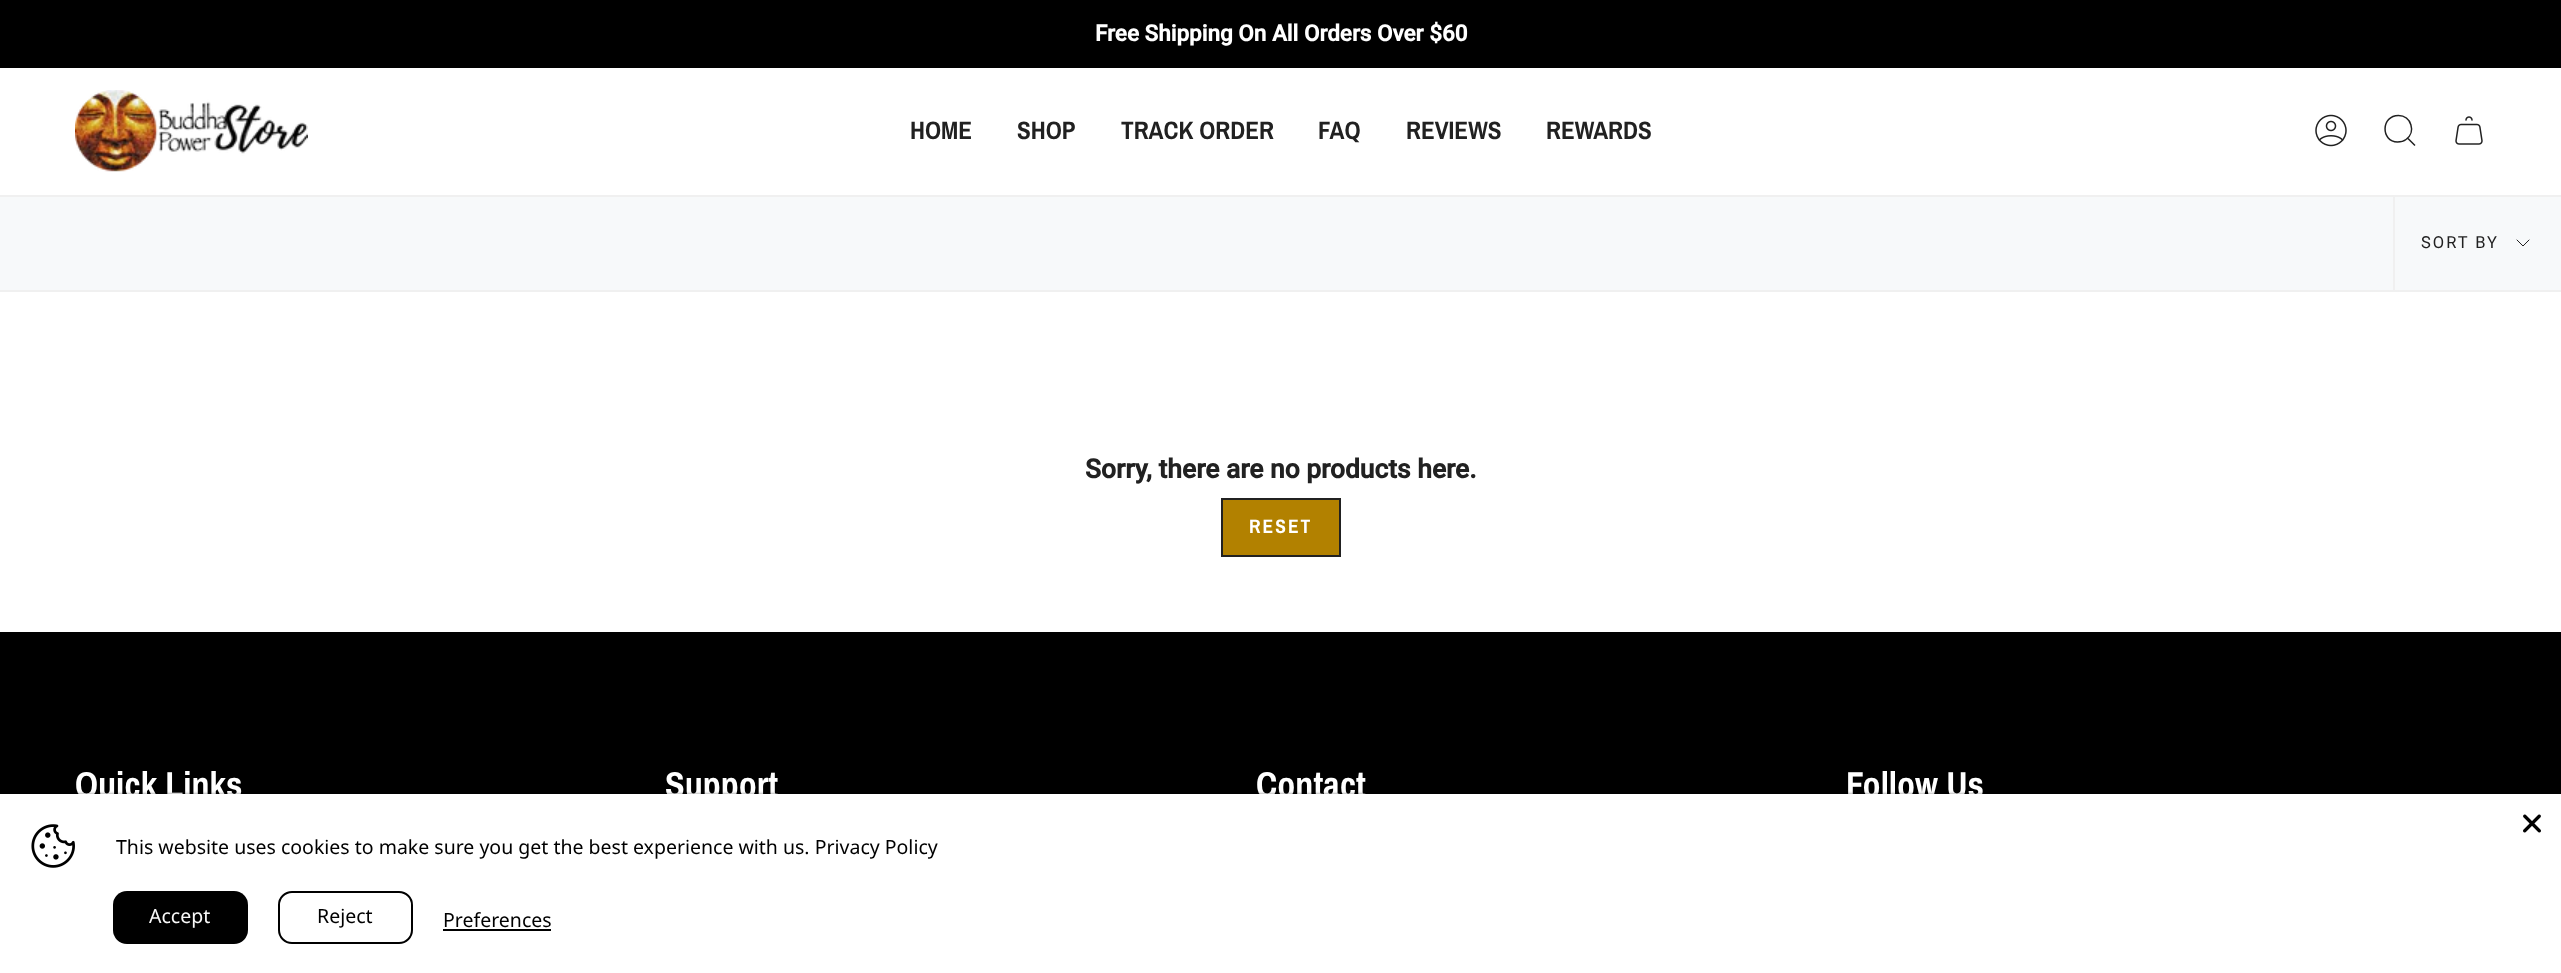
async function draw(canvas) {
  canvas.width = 2561;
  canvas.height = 973;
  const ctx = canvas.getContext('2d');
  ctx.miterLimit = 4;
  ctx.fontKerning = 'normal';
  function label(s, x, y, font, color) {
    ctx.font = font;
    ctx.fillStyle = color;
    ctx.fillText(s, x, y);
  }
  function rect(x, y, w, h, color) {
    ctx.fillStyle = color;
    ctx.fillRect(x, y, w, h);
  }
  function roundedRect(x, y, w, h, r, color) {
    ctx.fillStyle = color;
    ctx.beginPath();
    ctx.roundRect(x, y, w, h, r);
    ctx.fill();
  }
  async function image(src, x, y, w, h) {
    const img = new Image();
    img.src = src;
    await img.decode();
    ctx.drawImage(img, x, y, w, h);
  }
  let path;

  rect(0, 0, 2561, 973, '#fff');
  rect(0, 0, 2561, 68, '#000');
  label('Free Shipping On All Orders Over $60', 1095, 41, 'bold 22.5px Roboto', '#fff');
  await image('assets/img1.png', 75, 90, 233, 82);
  label('HOME', 910, 139, 'bold 25.25px Archivo Narrow', '#212121');
  label('SHOP', 1017, 139, 'bold 25.25px Archivo Narrow', '#212121');
  label('TRACK ORDER', 1121, 139, 'bold 25.25px Archivo Narrow', '#212121');
  label('FAQ', 1318, 139, 'bold 25.25px Archivo Narrow', '#212121');
  label('REVIEWS', 1406, 139, 'bold 25.25px Archivo Narrow', '#212121');
  label('REWARDS', 1546, 139, 'bold 25.25px Archivo Narrow', '#212121');
  await image('assets/img2.png', 2315, 114, 32, 33);
  path = new Path2D('M2398.5 115.5C2411 115.5 2416.5 132 2406 139.5C2403.5 141.5 2400.5 142 2397.5 142C2380.5 141.5 2381 115.5 2398.5 115.5ZM2407.5 138L2415 145.5');
  ctx.strokeStyle = '#212121';
  ctx.lineWidth = 1.5;
  ctx.stroke(path);
  await image('assets/img3.png', 2455, 116, 28, 29);
  rect(0, 197, 2561, 93, '#f7f9fa');
  rect(0, 195, 2561, 2, '#f0f0f0');
  rect(0, 290, 2561, 2, '#f0f0f0');
  rect(2393, 197, 2, 93, '#f0f0f0');
  ctx.letterSpacing = '2px';
  label('SORT BY', 2421, 248, '16.5px Roboto', '#212121');
  path = new Path2D('M2517 240L2523 246L2529 240');
  ctx.lineWidth = 1;
  ctx.lineCap = 'round';
  ctx.lineJoin = 'round';
  ctx.stroke(path);
  ctx.letterSpacing = '0px';
  label('Sorry, there are no products here.', 1085, 478, 'bold 26.4px Roboto', '#212121');
  ctx.fillStyle = '#b28100';
  ctx.beginPath();
  ctx.rect(1222, 499, 118, 57);
  ctx.fill();
  ctx.lineWidth = 2;
  ctx.lineJoin = 'miter';
  ctx.stroke();
  ctx.letterSpacing = '2px';
  label('RESET', 1249, 533, 'bold 19.5px Archivo Narrow', '#fff');
  rect(0, 632, 2561, 162, '#000');
  ctx.letterSpacing = '0px';
  label('Quick Links', 75, 797, 'bold 36px Archivo Narrow', '#fff');
  label('Support', 665, 797, 'bold 36px Archivo Narrow', '#fff');
  label('Contact', 1256, 797, 'bold 36px Archivo Narrow', '#fff');
  label('Follow Us', 1846, 797, 'bold 36px Archivo Narrow', '#fff');
  ctx.fillStyle = '#00000080';
  ctx.filter = 'blur(1.5px)';
  ctx.beginPath();
  ctx.rect(0, 794, 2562, 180);
  ctx.fill();
  ctx.filter = 'none';
  rect(0, 794, 2561, 179, '#fff');
  await image('assets/img4.png', 2523, 814, 18, 19);
  await image('assets/img5.png', 31, 824, 44, 44);
  label('This website uses cookies to make sure you get the best experience with us. Privacy Policy', 116, 854, '19.5px Noto Sans', '#000');
  roundedRect(113, 891, 135, 53, 14, '#000');
  label('Accept', 149, 923, '19.5px Noto Sans', '#f8f8f8');
  ctx.beginPath();
  ctx.roundRect(279, 892, 133, 51, 13);
  ctx.strokeStyle = '#000';
  ctx.stroke();
  label('Reject', 317, 923, '19.5px Noto Sans', '#000');
  label('Preferences', 443, 927, '19.5px Noto Sans', '#000');
  rect(443, 929, 108, 2, '#000');
}

draw(document.querySelector('canvas'));
